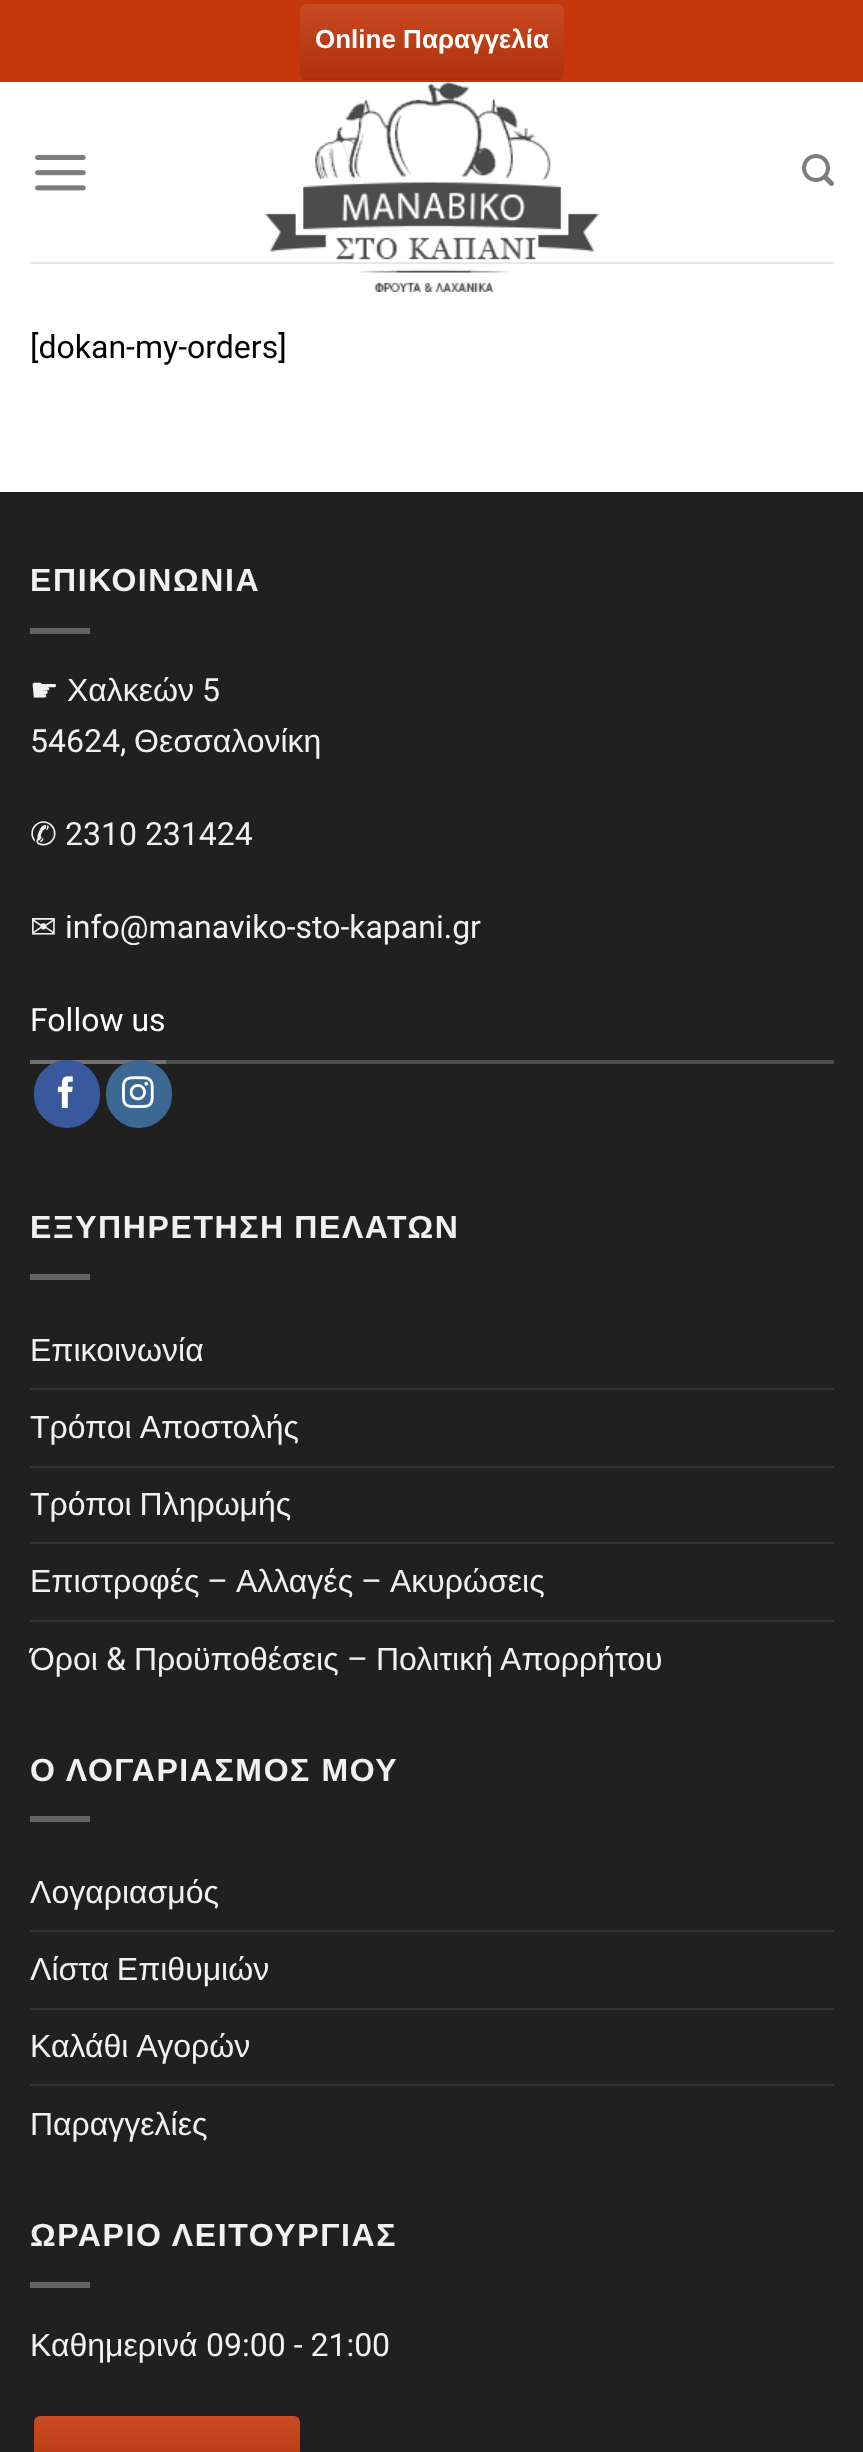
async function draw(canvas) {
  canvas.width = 863;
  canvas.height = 2452;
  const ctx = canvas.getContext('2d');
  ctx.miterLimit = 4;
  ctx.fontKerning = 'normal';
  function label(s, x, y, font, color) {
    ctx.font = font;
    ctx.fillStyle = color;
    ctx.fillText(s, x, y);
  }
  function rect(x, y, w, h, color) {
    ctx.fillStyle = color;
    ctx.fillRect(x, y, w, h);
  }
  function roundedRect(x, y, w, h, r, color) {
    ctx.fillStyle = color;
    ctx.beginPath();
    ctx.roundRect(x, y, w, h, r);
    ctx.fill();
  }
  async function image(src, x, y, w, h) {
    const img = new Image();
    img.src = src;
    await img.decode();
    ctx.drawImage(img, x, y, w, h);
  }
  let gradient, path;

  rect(0, 0, 863, 2452, '#fff');
  rect(0, 0, 863, 82, '#c3370b');
  ctx.fillStyle = '#a62f09';
  path = new Path2D('M300 72C300 75 301 79 305 80H559C563 79 564 75 564 72C564 75 561 78 558 78H306C303 78 300 75 300 72Z');
  ctx.fill(path);
  gradient = ctx.createLinearGradient(432, 78, 432, 4);
  gradient.addColorStop(0, '#af310a');
  gradient.addColorStop(1, '#c94b23');
  ctx.fillStyle = gradient;
  ctx.beginPath();
  ctx.roundRect(300, 4, 264, 74, 6);
  ctx.fill();
  label('Online Παραγγελία', 315, 48, 'bold 26px Liberation Sans', '#fff');
  await image('assets/img1.png', 35, 154, 51, 37);
  await image('assets/img2.png', 265, 82, 334, 210);
  await image('assets/img3.png', 802, 154, 32, 32);
  rect(30, 262, 804, 2, '#e6e6e6');
  label('[dokan-my-orders]', 30, 358, '32px Roboto', '#000');
  rect(0, 494, 863, 1958, '#202020');
  rect(0, 492, 863, 2, '#1e1e1e');
  ctx.letterSpacing = '1.6px';
  label('ΕΠΙΚΟΙΝΩΝΙΑ', 30, 591, 'bold 32px Liberation Sans', '#f1f1f1');
  rect(30, 628, 60, 6, '#636363');
  ctx.letterSpacing = '0px';
  label('☛', 30, 701, '32px DejaVu Sans', '#f1f1f1');
  label('Χαλκεών', 67, 701, '32px Liberation Sans', '#f1f1f1');
  label('5', 202, 701, '32px Roboto', '#f1f1f1');
  label('54624,', 30, 752, '32px Roboto', '#f1f1f1');
  label('Θεσσαλονίκη', 134, 752, '32px Liberation Sans', '#f1f1f1');
  label('✆', 30, 845, '32px DejaVu Sans', '#f1f1f1');
  label('2310 231424', 65, 845, '32px Roboto', '#f1f1f1');
  label('✉', 30, 938, '32px DejaVu Sans', '#f1f1f1');
  label('info@manaviko-sto-kapani.gr', 65, 938, '32px Roboto', '#f1f1f1');
  rect(166, 1060, 668, 4, '#4d4d4d');
  rect(30, 1060, 136, 4, '#717171');
  label('Follow us', 30, 1031, '32px Roboto', '#fff');
  ctx.fillStyle = '#3a589d';
  ctx.beginPath();
  ctx.roundRect(35, 1061, 64, 66, 32);
  ctx.fill();
  ctx.strokeStyle = '#3a589d';
  ctx.lineWidth = 2;
  ctx.stroke();
  await image('assets/img4.png', 57, 1076, 16, 32);
  ctx.fillStyle = '#3b6994';
  ctx.beginPath();
  ctx.roundRect(107, 1061, 64, 66, 32);
  ctx.fill();
  ctx.strokeStyle = '#3b6994';
  ctx.stroke();
  await image('assets/img5.png', 122, 1076, 32, 32);
  ctx.letterSpacing = '1.6px';
  ctx.wordSpacing = '-1px';
  label('ΕΞΥΠΗΡΕΤΗΣΗ ΠΕΛΑΤΩΝ', 30, 1238, 'bold 32px Liberation Sans', '#f1f1f1');
  rect(30, 1274, 60, 6, '#636363');
  ctx.letterSpacing = '0px';
  ctx.wordSpacing = '0px';
  label('Επικοινωνία', 30, 1361, '32px Liberation Sans', '#f1f1f1');
  rect(30, 1388, 804, 2, '#323232');
  ctx.wordSpacing = '1px';
  label('Τρόποι Αποστολής', 30, 1438, '32px Liberation Sans', '#f1f1f1');
  rect(30, 1466, 804, 2, '#323232');
  ctx.wordSpacing = '-1px';
  label('Τρόποι Πληρωμής', 30, 1515, '32px Liberation Sans', '#f1f1f1');
  rect(30, 1542, 804, 2, '#323232');
  ctx.wordSpacing = '0px';
  label('Επιστροφές', 30, 1592, '32px Liberation Sans', '#f1f1f1');
  label('–', 207, 1592, '32px Roboto', '#f1f1f1');
  label('Αλλαγές', 236, 1592, '32px Liberation Sans', '#f1f1f1');
  label('–', 361, 1592, '32px Roboto', '#f1f1f1');
  label('Ακυρώσεις', 390, 1592, '32px Liberation Sans', '#f1f1f1');
  rect(30, 1620, 804, 2, '#323232');
  label('Όροι', 30, 1670, '32px Liberation Sans', '#f1f1f1');
  label('&', 106, 1670, '32px Roboto', '#f1f1f1');
  label('Προϋποθέσεις', 134, 1670, '32px Liberation Sans', '#f1f1f1');
  label('–', 347, 1670, '32px Roboto', '#f1f1f1');
  label('Πολιτική Απορρήτου', 376, 1670, '32px Liberation Sans', '#f1f1f1');
  ctx.letterSpacing = '1.6px';
  label('Ο ΛΟΓΑΡΙΑΣΜΟΣ ΜΟΥ', 30, 1781, 'bold 32px Liberation Sans', '#f1f1f1');
  rect(30, 1816, 60, 6, '#636363');
  ctx.letterSpacing = '0px';
  label('Λογαριασμός', 30, 1903, '32px Liberation Sans', '#f1f1f1');
  rect(30, 1930, 804, 2, '#323232');
  ctx.wordSpacing = '-1px';
  label('Λίστα Επιθυμιών', 30, 1980, '32px Liberation Sans', '#f1f1f1');
  rect(30, 2008, 804, 2, '#323232');
  ctx.wordSpacing = '1px';
  label('Καλάθι Αγορών', 30, 2057, '32px Liberation Sans', '#f1f1f1');
  rect(30, 2084, 804, 2, '#323232');
  ctx.wordSpacing = '0px';
  label('Παραγγελίες', 30, 2135, '32px Liberation Sans', '#f1f1f1');
  ctx.letterSpacing = '1.6px';
  label('ΩΡΑΡΙΟ ΛΕΙΤΟΥΡΓΙΑΣ', 30, 2246, 'bold 32px Liberation Sans', '#f1f1f1');
  rect(30, 2282, 60, 6, '#636363');
  ctx.letterSpacing = '0px';
  label('Καθημερινά', 30, 2356, '32px Liberation Sans', '#f1f1f1');
  label('09:00 - 21:00', 206, 2356, '32px Roboto', '#f1f1f1');
  roundedRect(34, 2416, 266, 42, 6, '#c3370b');
  gradient = ctx.createLinearGradient(167, 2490, 167, 2416);
  gradient.addColorStop(0, '#0000001a');
  gradient.addColorStop(1, '#ffffff1a');
  ctx.fillStyle = gradient;
  ctx.beginPath();
  ctx.roundRect(34, 2416, 266, 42, 6);
  ctx.fill();
}

draw(document.querySelector('canvas'));
